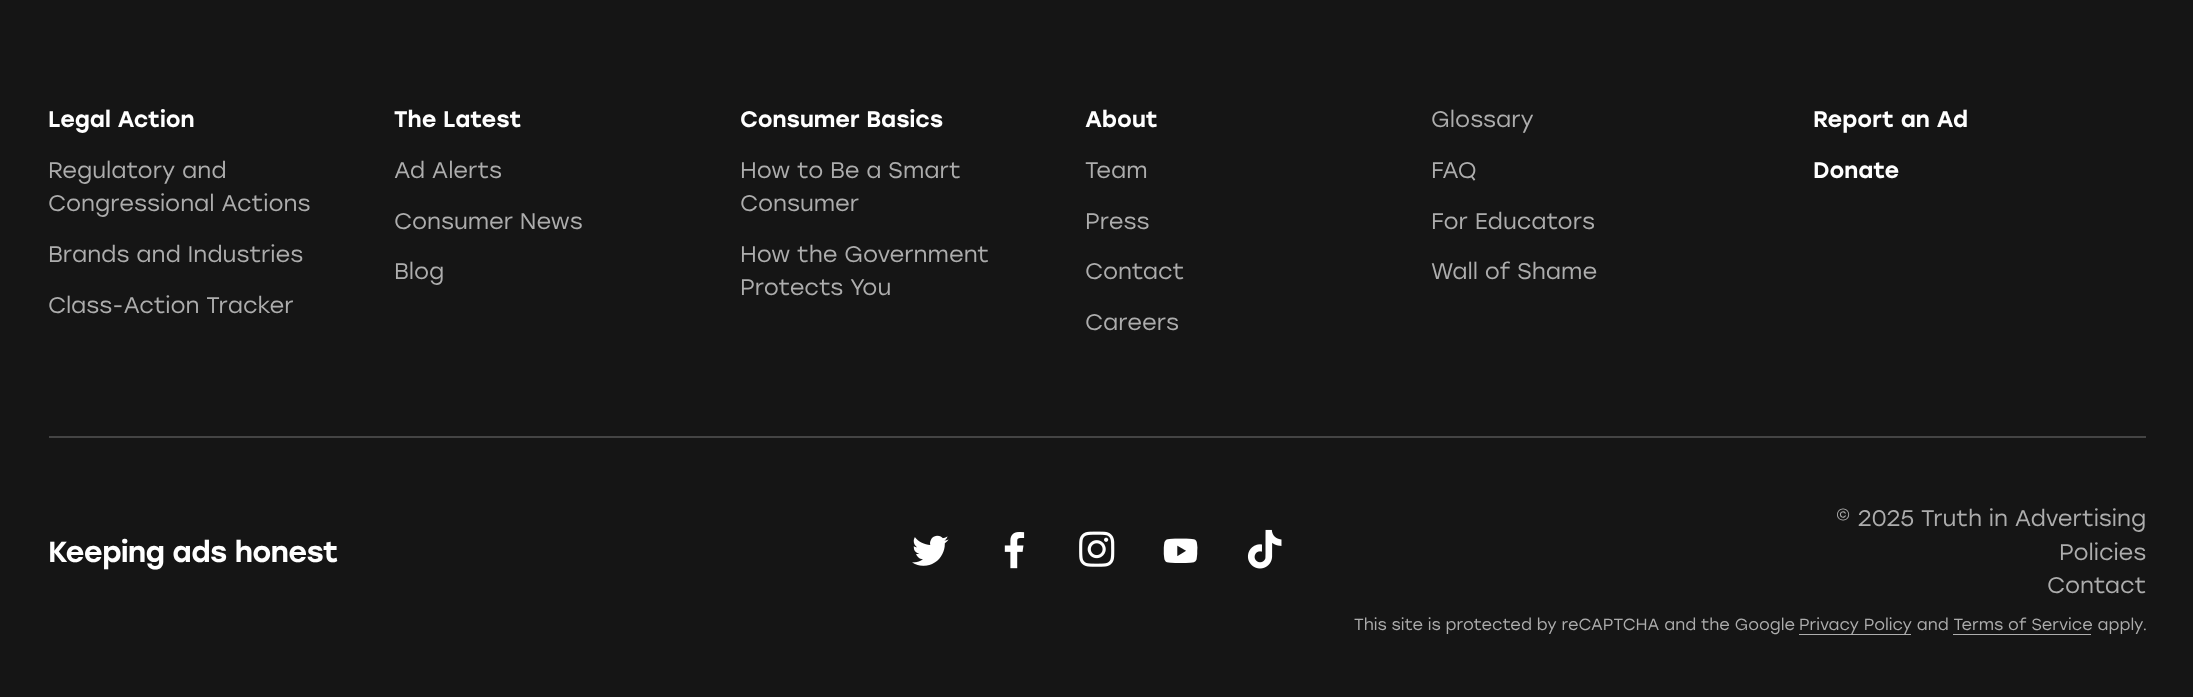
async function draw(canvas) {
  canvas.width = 2193;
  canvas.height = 697;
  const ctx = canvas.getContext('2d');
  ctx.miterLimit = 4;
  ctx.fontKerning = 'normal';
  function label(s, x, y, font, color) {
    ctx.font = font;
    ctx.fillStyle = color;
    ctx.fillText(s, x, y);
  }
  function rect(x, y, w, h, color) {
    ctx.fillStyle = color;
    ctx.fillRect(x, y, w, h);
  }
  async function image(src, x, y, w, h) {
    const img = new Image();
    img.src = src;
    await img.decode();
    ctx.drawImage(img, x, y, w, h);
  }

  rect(0, 0, 2193, 697, '#151515');
  label('Legal Action', 48, 127, '500 22.5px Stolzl', '#fff');
  label('Regulatory and', 48, 178, '22.5px Stolzl', '#adadad');
  label('Congressional Actions', 48, 211, '22.5px Stolzl', '#adadad');
  label('Brands and Industries', 48, 262, '22.5px Stolzl', '#adadad');
  label('Class-Action Tracker', 48, 313, '22.5px Stolzl', '#adadad');
  label('The Latest', 394, 127, '500 22.5px Stolzl', '#fff');
  label('Ad Alerts', 394, 178, '22.5px Stolzl', '#adadad');
  label('Consumer News', 394, 229, '22.5px Stolzl', '#adadad');
  label('Blog', 394, 279, '22.5px Stolzl', '#adadad');
  label('Consumer Basics', 740, 127, '500 22.5px Stolzl', '#fff');
  label('How to Be a Smart', 740, 178, '22.5px Stolzl', '#adadad');
  label('Consumer', 740, 211, '22.5px Stolzl', '#adadad');
  label('How the Government', 740, 262, '22.5px Stolzl', '#adadad');
  label('Protects You', 740, 295, '22.5px Stolzl', '#adadad');
  label('About', 1085, 127, '500 22.5px Stolzl', '#fff');
  label('Team', 1085, 178, '22.5px Stolzl', '#adadad');
  label('Press', 1085, 229, '22.5px Stolzl', '#adadad');
  label('Contact', 1085, 279, '22.5px Stolzl', '#adadad');
  label('Careers', 1085, 330, '22.5px Stolzl', '#adadad');
  label('Glossary', 1431, 127, '22.5px Stolzl', '#adadad');
  label('FAQ', 1431, 178, '22.5px Stolzl', '#adadad');
  label('For Educators', 1431, 229, '22.5px Stolzl', '#adadad');
  label('Wall of Shame', 1431, 279, '22.5px Stolzl', '#adadad');
  label('Report an Ad', 1813, 127, '500 22.5px Stolzl', '#fff');
  label('Donate', 1813, 178, '500 22.5px Stolzl', '#fff');
  rect(49, 436, 2097, 2, '#444');
  ctx.letterSpacing = '-0.6px';
  label('Keeping ads honest', 48, 562, '500 29px Stolzl', '#fff');
  await image('assets/img1.png', 912, 535, 37, 31);
  await image('assets/img2.png', 1004, 532, 21, 37);
  await image('assets/img3.png', 1079, 531, 36, 36);
  await image('assets/img4.png', 1163, 538, 35, 25);
  await image('assets/img5.png', 1247, 529, 35, 40);
  ctx.letterSpacing = '0px';
  label('© 2025 Truth in Advertising', 1835, 526, '22.5px Stolzl', '#adadad');
  label('Policies', 2059, 560, '22.5px Stolzl', '#adadad');
  label('Contact', 2047, 593, '22.5px Stolzl', '#adadad');
  label('This site is protected by reCAPTCHA and the Google', 1354, 630, '16.1px Stolzl', '#adadad');
  label('Privacy Policy and Terms of Service apply.', 1799, 630, '16.1px Stolzl', '#adadad');
  rect(1799, 634, 112, 1, '#adadad');
  rect(1953, 634, 138, 1, '#adadad');
}

draw(document.querySelector('canvas'));
